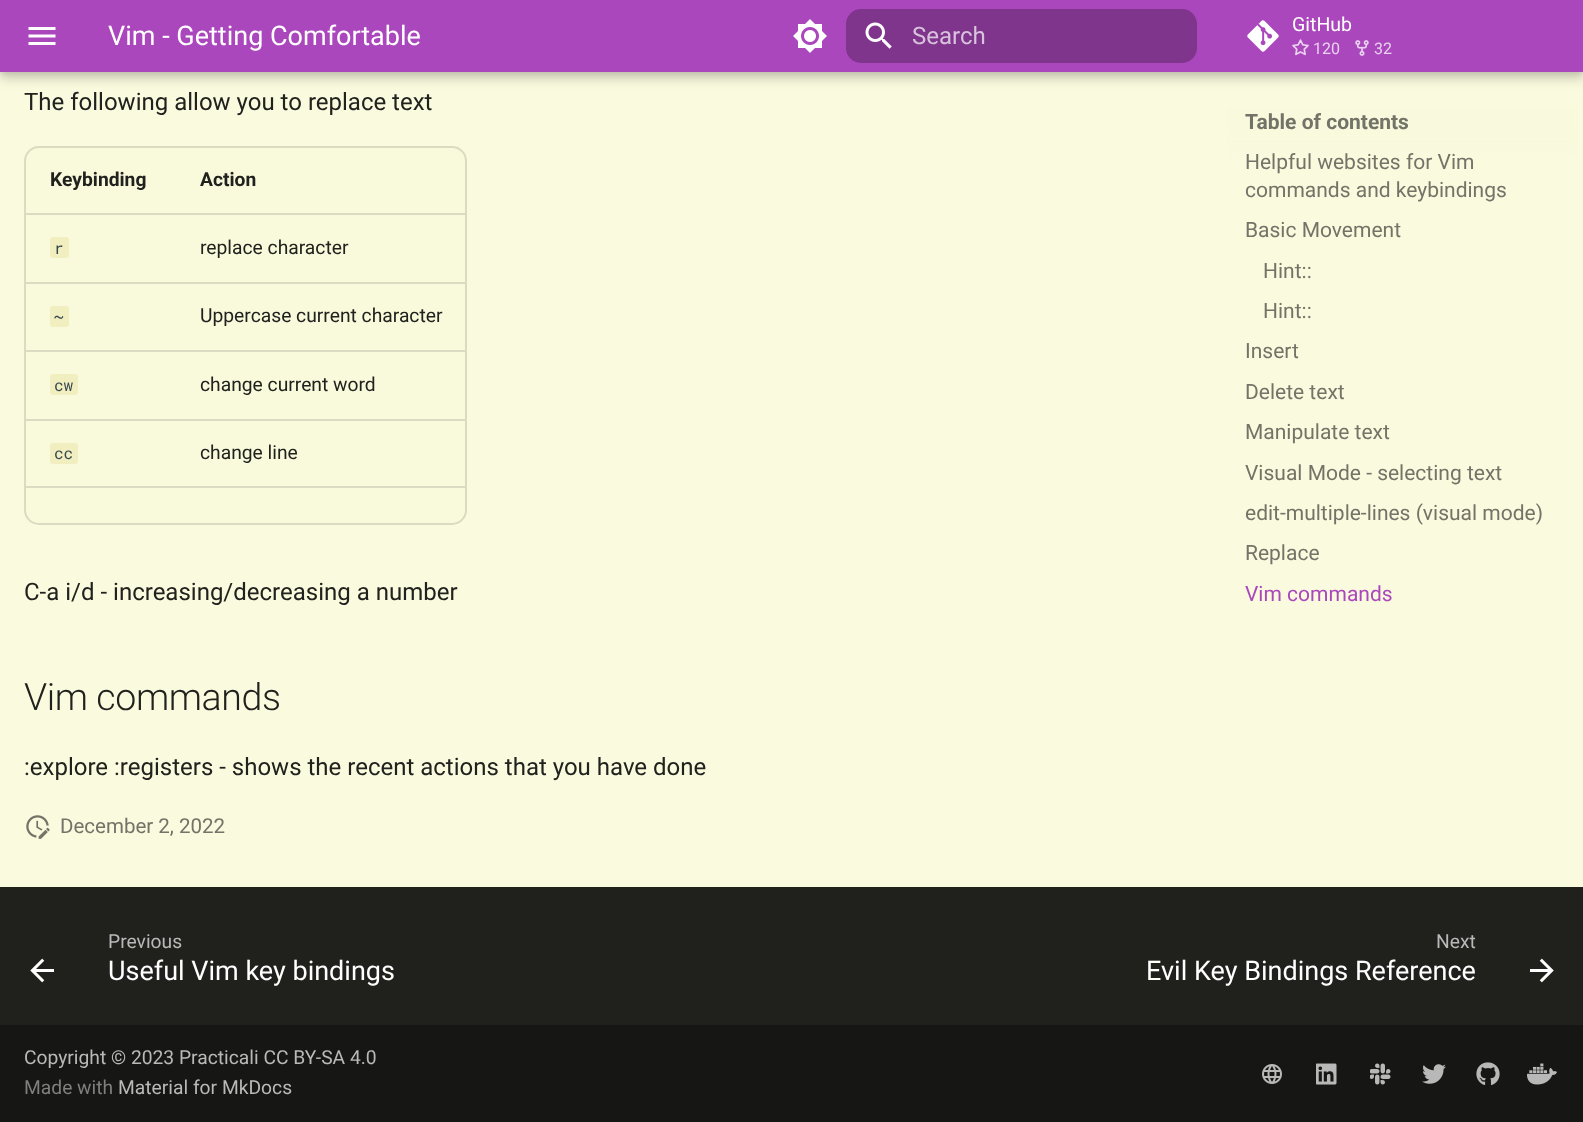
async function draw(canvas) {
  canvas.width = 1583;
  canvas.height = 1122;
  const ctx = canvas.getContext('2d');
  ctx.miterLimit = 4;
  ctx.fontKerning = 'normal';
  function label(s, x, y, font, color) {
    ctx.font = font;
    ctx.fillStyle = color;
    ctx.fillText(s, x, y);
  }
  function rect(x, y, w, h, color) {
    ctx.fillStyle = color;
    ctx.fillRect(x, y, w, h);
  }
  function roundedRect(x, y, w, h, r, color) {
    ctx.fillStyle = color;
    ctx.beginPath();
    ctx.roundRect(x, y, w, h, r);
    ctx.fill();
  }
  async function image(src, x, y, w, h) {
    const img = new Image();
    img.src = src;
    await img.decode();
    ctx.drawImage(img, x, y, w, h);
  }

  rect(0, 0, 1583, 1122, '#fafadf');
  ctx.fillStyle = '#00000033';
  ctx.filter = 'blur(6px)';
  ctx.beginPath();
  ctx.rect(0, 6, 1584, 72);
  ctx.fill();
  ctx.filter = 'none';
  ctx.fillStyle = '#0000001a';
  ctx.filter = 'blur(3px)';
  ctx.beginPath();
  ctx.rect(0, 0, 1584, 72);
  ctx.fill();
  ctx.filter = 'none';
  rect(0, 0, 1583, 72, '#ab47bd');
  await image('assets/img1.png', 28, 27, 28, 18);
  label('Vim - Getting Comfortable', 108, 45, '27px Roboto', '#fff');
  await image('assets/img2.png', 793, 19, 34, 34);
  roundedRect(846, 9, 351, 54, 15, '#7f358c');
  await image('assets/img3.png', 865, 22, 27, 27);
  label('Search', 912, 44, '24px Roboto', '#d9c2dd');
  await image('assets/img4.png', 1247, 20, 32, 32);
  label('GitHub', 1292, 31, '19.5px Roboto', '#fff');
  await image('assets/img5.png', 1292, 39, 17, 17);
  label('120', 1313, 54, '16px Roboto', '#ead1ef');
  await image('assets/img6.png', 1355, 40, 14, 16);
  label('32', 1374, 54, '16px Roboto', '#ead1ef');
  label('The following allow you to replace text', 24, 110, '24px Roboto', '#21211d');
  ctx.fillStyle = '#f9f9dc';
  ctx.beginPath();
  ctx.roundRect(25, 147, 441, 377, 14);
  ctx.fill();
  ctx.strokeStyle = '#dbdbc2';
  ctx.lineWidth = 2;
  ctx.stroke();
  label('Keybinding', 50, 186, 'bold 19.25px Roboto', '#21211d');
  label('Action', 200, 186, 'bold 19.25px Roboto', '#21211d');
  rect(26, 213, 439, 2, '#dbdbc2');
  roundedRect(50, 237, 19, 21, 3, '#f1eebf');
  label('r', 54, 254, '16px Roboto Mono', '#36464e');
  label('replace character', 200, 254, '19.25px Roboto', '#21211d');
  rect(26, 282, 439, 2, '#dbdbc2');
  roundedRect(50, 306, 19, 21, 3, '#f1eebf');
  label('~', 54, 322, '16px Roboto Mono', '#36464e');
  label('Uppercase current character', 200, 322, '19.25px Roboto', '#21211d');
  rect(26, 350, 439, 2, '#dbdbc2');
  roundedRect(50, 374, 28, 21, 3, '#f1eebf');
  label('cw', 54, 391, '16px Roboto Mono', '#36464e');
  label('change current word', 200, 391, '19.25px Roboto', '#21211d');
  rect(26, 419, 439, 2, '#dbdbc2');
  roundedRect(50, 443, 28, 21, 3, '#f1eebf');
  label('cc', 54, 459, '16px Roboto Mono', '#36464e');
  label('change line', 200, 459, '19.25px Roboto', '#21211d');
  rect(26, 486, 439, 2, '#dbdbc2');
  label('C-a i/d - increasing/decreasing a number', 24, 600, '24px Roboto', '#21211d');
  ctx.letterSpacing = '-0.4px';
  label('Vim commands', 24, 710, '300 37.5px Roboto', '#21211d');
  ctx.letterSpacing = '0px';
  label(':explore :registers - shows the recent actions that you have done', 24, 775, '24px Roboto', '#21211d');
  await image('assets/img7.png', 26, 815, 24, 24);
  label('December 2, 2022', 60, 833, '20.5px Roboto', '#737367');
  ctx.save();
  ctx.beginPath();
  ctx.rect(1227, 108, 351, 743);
  ctx.clip();
  ctx.fillStyle = '#f9f9dceb';
  ctx.filter = 'blur(6px)';
  ctx.beginPath();
  ctx.rect(1215, 96, 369, 51);
  ctx.fill();
  ctx.filter = 'none';
  ctx.restore();
  label('Table of contents', 1245, 129, 'bold 21px Roboto', '#737367');
  label('Helpful websites for Vim', 1245, 169, '21px Roboto', '#737367');
  label('commands and keybindings', 1245, 197, '21px Roboto', '#737367');
  label('Basic Movement', 1245, 237, '21px Roboto', '#737367');
  label('Hint::', 1263, 278, '21px Roboto', '#737367');
  label('Hint::', 1263, 318, '21px Roboto', '#737367');
  label('Insert', 1245, 358, '21px Roboto', '#737367');
  label('Delete text', 1245, 399, '21px Roboto', '#737367');
  label('Manipulate text', 1245, 439, '21px Roboto', '#737367');
  label('Visual Mode - selecting text', 1245, 480, '21px Roboto', '#737367');
  label('edit-multiple-lines (visual mode)', 1245, 520, '21px Roboto', '#737367');
  label('Replace', 1245, 560, '21px Roboto', '#737367');
  label('Vim commands', 1245, 601, '21px Roboto', '#ab47bd');
  rect(0, 887, 1583, 138, '#20201d');
  await image('assets/img8.png', 30, 958, 24, 25);
  label('Previous', 108, 948, '19.25px Roboto', '#b9b9b9');
  label('Useful Vim key bindings', 108, 980, '27px Roboto', '#fff');
  label('Next', 1436, 948, '19.25px Roboto', '#b9b9b9');
  label('Evil Key Bindings Reference', 1146, 980, '27px Roboto', '#fff');
  await image('assets/img9.png', 1530, 958, 24, 25);
  rect(0, 1025, 1583, 97, '#161614');
  label('Copyright © 2023 Practicali CC BY-SA 4.0', 24, 1064, '19.25px Roboto', '#b9b9b9');
  label('Made with', 24, 1094, '19.25px Roboto', '#7f7f7e');
  label('Material for MkDocs', 118, 1094, '19.25px Roboto', '#b9b9b9');
  await image('assets/img10.png', 1262, 1064, 20, 20);
  await image('assets/img11.png', 1316, 1063, 21, 22);
  await image('assets/img12.png', 1370, 1063, 21, 22);
  await image('assets/img13.png', 1422, 1064, 24, 20);
  await image('assets/img14.png', 1476, 1062, 24, 23);
  await image('assets/img15.png', 1527, 1063, 30, 22);
}

draw(document.querySelector('canvas'));
